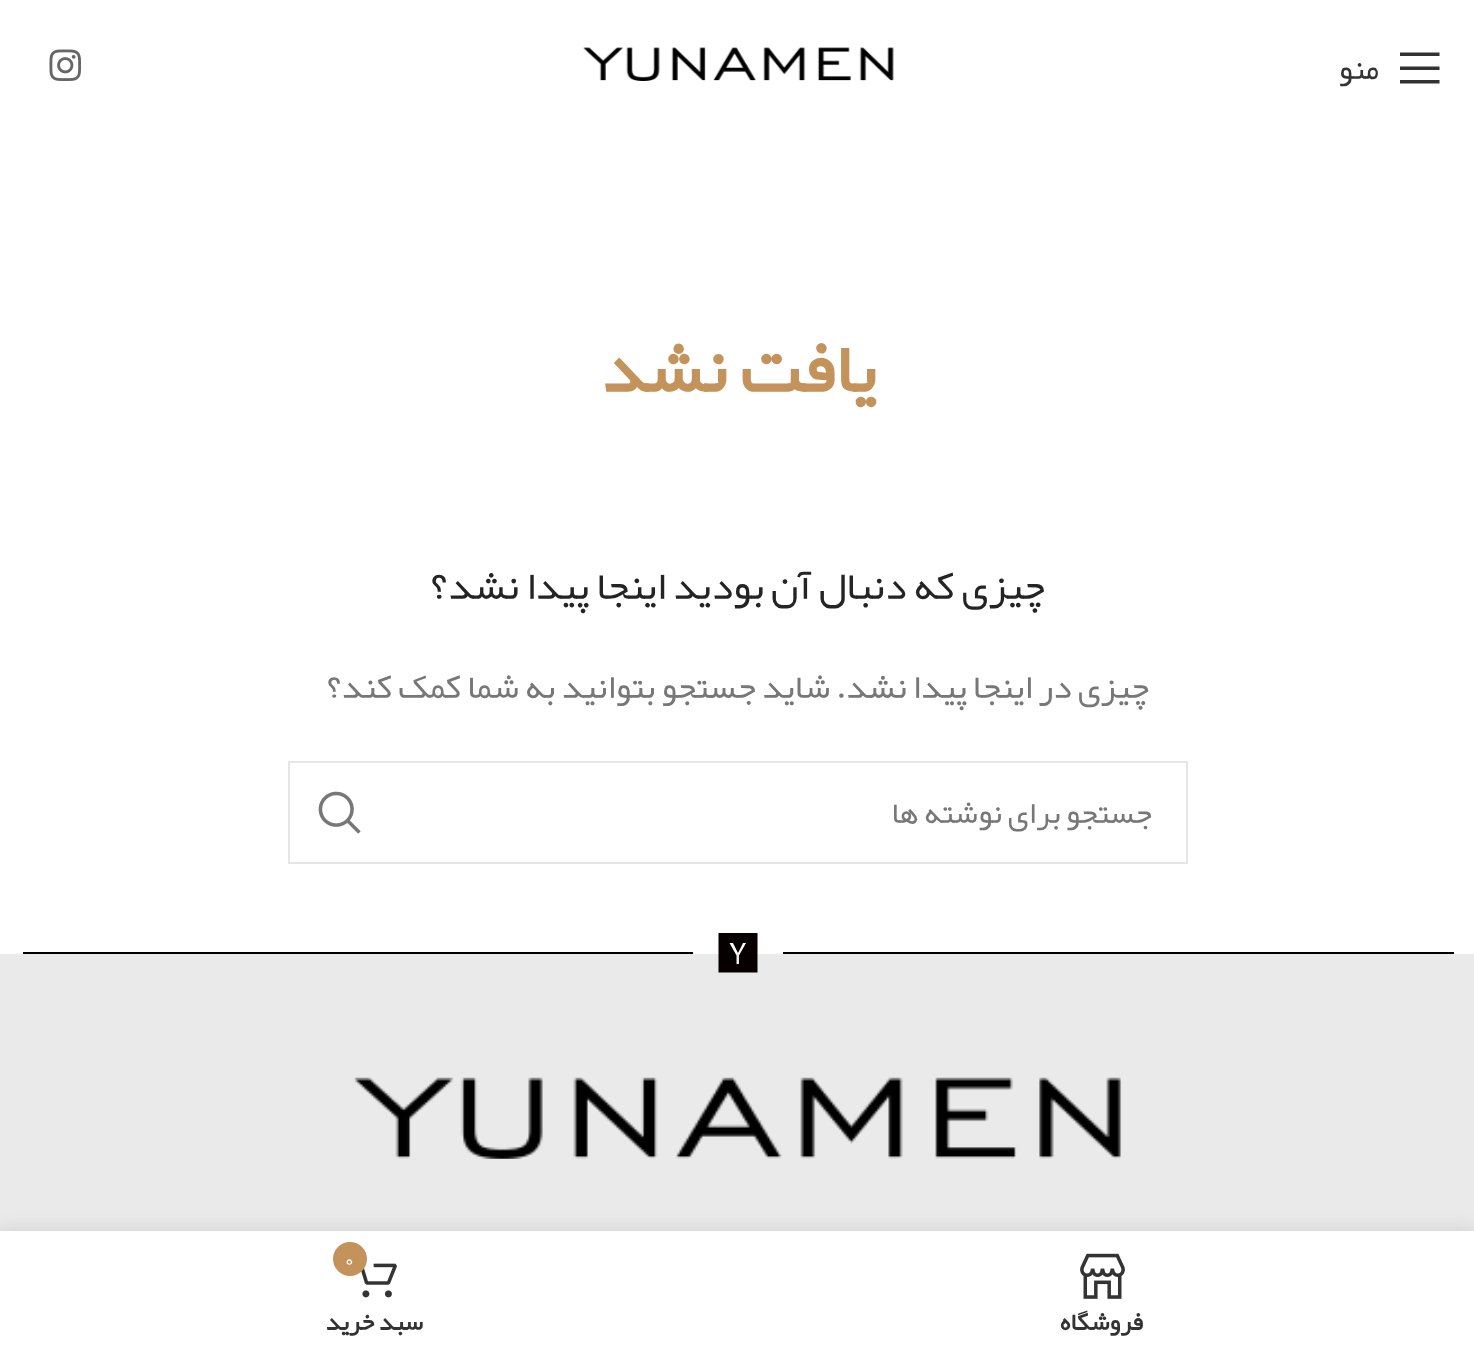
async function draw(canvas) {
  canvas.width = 1474;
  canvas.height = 1353;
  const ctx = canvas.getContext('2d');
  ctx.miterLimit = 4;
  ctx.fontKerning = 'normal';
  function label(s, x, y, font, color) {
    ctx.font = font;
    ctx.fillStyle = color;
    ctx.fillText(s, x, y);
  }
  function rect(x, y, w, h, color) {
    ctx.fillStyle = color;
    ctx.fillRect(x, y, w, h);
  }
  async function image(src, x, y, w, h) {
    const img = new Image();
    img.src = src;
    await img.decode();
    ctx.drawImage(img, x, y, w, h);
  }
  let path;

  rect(0, 0, 1474, 1353, '#fff');
  ctx.fillStyle = '#333';
  path = new Path2D('M1400 56H1439.5V52.5H1400ZM1400 70H1439.5V66.5H1400ZM1400 83.5H1439.5V80H1400Z');
  ctx.fill(path);
  ctx.direction = 'rtl';
  label('منو', 1379, 79, '31.5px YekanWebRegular', '#333');
  await image('assets/img1.png', 583, 47, 311, 34);
  await image('assets/img2.png', 49, 49, 32, 32);
  label('یافت نشد', 876, 392, 'bold 72px YekanWebRegular', '#c3935b');
  label('چیزی که دنبال آن بودید اینجا پیدا نشد؟', 1045, 599, '40.5px YekanWebRegular', '#242424');
  label('چیزی در اینجا پیدا نشد. شاید جستجو بتوانید به شما کمک کند؟', 1149, 698, '34.65px YekanWebRegular', '#777');
  ctx.strokeStyle = '#e6e6e6';
  ctx.lineWidth = 2;
  ctx.strokeRect(289, 762, 898, 101);
  label('جستجو برای نوشته ها', 1152, 823, '31.5px YekanWebRegular', '#777');
  await image('assets/img3.png', 318, 791, 43, 43);
  rect(0, 954, 1474, 277, '#eaeaea');
  rect(783, 952, 671, 2, '#000');
  ctx.fillStyle = '#060000';
  path = new Path2D('M757.5 933V972.5H718.5V933ZM739 955.5L746 943H743L738 953L733 943H729.5L736.5 955.5V964H739Z');
  ctx.fill(path);
  rect(23, 952, 670, 2, '#000');
  await image('assets/img4.png', 353, 1077, 768, 82);
  ctx.fillStyle = '#0000001f';
  ctx.filter = 'blur(10px)';
  ctx.beginPath();
  ctx.rect(0, 1231, 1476, 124);
  ctx.fill();
  ctx.filter = 'none';
  rect(0, 1231, 1474, 122, '#fff');
  await image('assets/img5.png', 1080, 1253, 45, 46);
  label('فروشگاه', 1143, 1330, 'bold 25px YekanWebRegular', '#333');
  await image('assets/img6.png', 361, 1263, 36, 35);
  ctx.fillStyle = '#c3935b';
  ctx.beginPath();
  ctx.arc(350, 1259, 17, 0, 2 * Math.PI);
  ctx.fill();
  ctx.direction = 'ltr';
  label('0', 344, 1265, '20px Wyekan', '#fff');
  ctx.direction = 'rtl';
  label('سبد خرید', 423, 1330, 'bold 25px YekanWebRegular', '#333');
}

draw(document.querySelector('canvas'));
